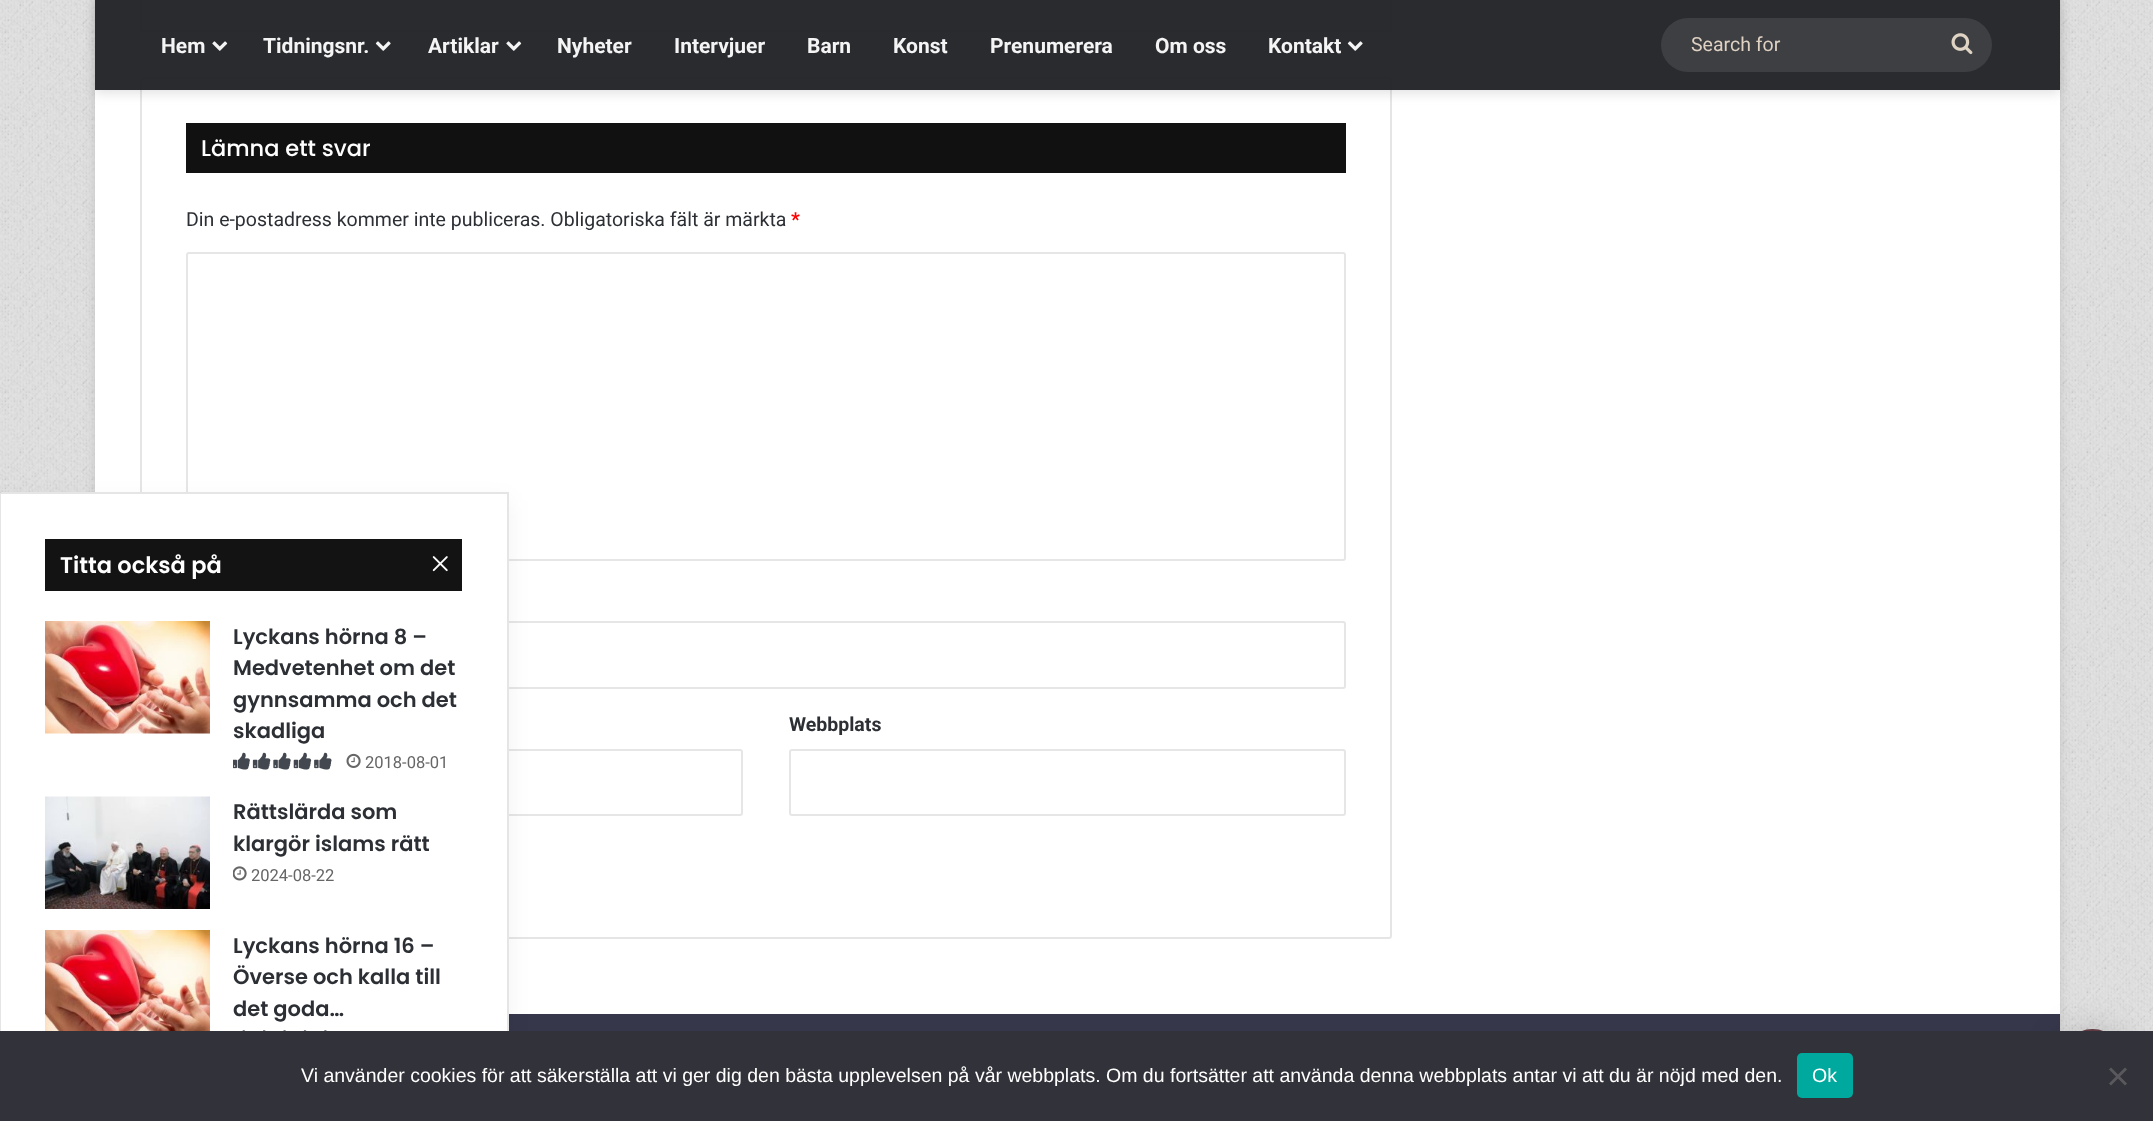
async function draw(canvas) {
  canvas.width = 2153;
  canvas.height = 1121;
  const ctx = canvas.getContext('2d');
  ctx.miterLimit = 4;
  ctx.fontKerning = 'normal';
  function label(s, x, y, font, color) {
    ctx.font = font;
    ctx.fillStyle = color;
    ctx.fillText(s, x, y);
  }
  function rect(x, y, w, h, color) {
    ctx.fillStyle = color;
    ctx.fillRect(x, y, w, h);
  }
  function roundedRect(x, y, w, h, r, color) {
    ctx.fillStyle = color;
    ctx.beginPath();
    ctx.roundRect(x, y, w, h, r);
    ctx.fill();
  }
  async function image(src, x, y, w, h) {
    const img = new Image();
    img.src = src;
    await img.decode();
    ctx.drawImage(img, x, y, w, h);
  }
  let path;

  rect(0, 0, 2153, 1121, '#e2e2e2');
  await image('assets/img1.png', 0, 0, 2153, 1031);
  ctx.fillStyle = '#ababab80';
  ctx.filter = 'blur(5px)';
  ctx.beginPath();
  ctx.rect(95, -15, 1965, 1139);
  ctx.fill();
  ctx.filter = 'none';
  rect(95, 0, 1965, 1014, '#fff');
  ctx.fillStyle = '#0000000d';
  ctx.filter = 'blur(11px)';
  ctx.beginPath();
  ctx.roundRect(140, -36, 1252, 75, 3);
  ctx.fill();
  ctx.filter = 'none';
  ctx.fillStyle = '#fff';
  ctx.beginPath();
  ctx.roundRect(141, -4, 1250, 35, 2);
  ctx.fill();
  ctx.strokeStyle = '#e5e5e5';
  ctx.lineWidth = 2;
  ctx.stroke();
  ctx.beginPath();
  ctx.roundRect(141, 78, 1250, 860, 2);
  ctx.strokeStyle = '#0000001a';
  ctx.stroke();
  ctx.save();
  path = new Path2D('M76 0H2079V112H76ZM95 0H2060V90H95Z');
  ctx.clip(path, 'evenodd');
  ctx.fillStyle = '#63636333';
  ctx.filter = 'blur(6px)';
  ctx.beginPath();
  ctx.rect(95, 3, 1965, 90);
  ctx.fill();
  ctx.filter = 'none';
  ctx.restore();
  rect(95, 0, 1965, 90, '#1f2024f2');
  label('Hem', 161, 53, 'bold 21px Roboto', '#f4f4f5');
  await image('assets/img2.png', 212, 41, 16, 10);
  label('Tidningsnr.', 263, 53, 'bold 21px Roboto', '#f4f4f5');
  await image('assets/img3.png', 375, 41, 16, 10);
  label('Artiklar', 428, 53, 'bold 21px Roboto', '#f4f4f5');
  await image('assets/img2.png', 506, 41, 16, 10);
  label('Nyheter', 557, 53, 'bold 21px Roboto', '#f4f4f5');
  label('Intervjuer', 674, 53, 'bold 21px Roboto', '#f4f4f5');
  label('Barn', 807, 53, 'bold 21px Roboto', '#f4f4f5');
  label('Konst', 893, 53, 'bold 21px Roboto', '#f4f4f5');
  label('Prenumerera', 990, 53, 'bold 21px Roboto', '#f4f4f5');
  label('Om oss', 1155, 53, 'bold 21px Roboto', '#f4f4f5');
  label('Kontakt', 1268, 53, 'bold 21px Roboto', '#f4f4f5');
  await image('assets/img3.png', 1347, 41, 16, 10);
  roundedRect(1661, 18, 331, 54, 27, '#3e3f43');
  label('Search for', 1691, 51, '19.5px Roboto', '#dfd2c3');
  await image('assets/img4.png', 1951, 33, 22, 22);
  rect(186, 123, 1160, 50, '#111');
  label('Lämna ett svar', 201, 156, '500 22.5px Poppins', '#fff');
  label('Din e-postadress kommer inte publiceras. Obligatoriska fält är märkta', 186, 226, '19.5px Roboto', '#2c2f34');
  label('*', 791, 226, 'bold 19.5px Roboto', '#f00');
  ctx.beginPath();
  ctx.roundRect(187, 253, 1158, 307, 2);
  ctx.strokeStyle = '#e6e6e6';
  ctx.stroke();
  ctx.beginPath();
  ctx.roundRect(187, 622, 1158, 66, 2);
  ctx.stroke();
  label('Webbplats', 789, 731, 'bold 19.5px Roboto', '#2c2f34');
  ctx.beginPath();
  ctx.roundRect(790, 750, 555, 65, 2);
  ctx.stroke();
  ctx.beginPath();
  ctx.roundRect(187, 750, 555, 65, 2);
  ctx.stroke();
  rect(509, 1014, 1551, 17, '#36374b');
  ctx.fillStyle = '#0000000d';
  ctx.filter = 'blur(11px)';
  ctx.beginPath();
  ctx.roundRect(-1, 500, 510, 607, 3);
  ctx.fill();
  ctx.filter = 'none';
  ctx.fillStyle = '#fff';
  path = new Path2D('M2 492H509V1100H2C.5 1100-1 1098.5-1 1097V495C-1 493.5 .5 492 2 492Z');
  ctx.fill(path);
  ctx.strokeStyle = '#0000001a';
  ctx.strokeRect(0, 493, 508, 606);
  rect(45, 539, 417, 52, '#131313');
  label('Titta också på', 60, 573, '600 22.5px Poppins', '#fff');
  await image('assets/img5.png', 432, 556, 16, 16);
  await image('assets/img6.png', 45, 621, 165, 113);
  label('Lyckans hörna 8 –', 233, 644, '600 21px Poppins', '#2c2f34');
  label('Medvetenhet om det', 233, 675, '600 21px Poppins', '#2c2f34');
  label('gynnsamma och det', 233, 707, '600 21px Poppins', '#2c2f34');
  label('skadliga', 233, 738, '600 21px Poppins', '#2c2f34');
  await image('assets/img7.png', 233, 752, 99, 18);
  await image('assets/img8.png', 346, 753, 15, 15);
  label('2018-08-01', 365, 768, '16.5px Roboto', '#666');
  await image('assets/img9.png', 45, 796, 165, 113);
  label('Rättslärda som', 233, 819, '600 21px Poppins', '#2c2f34');
  label('klargör islams rätt', 233, 851, '600 21px Poppins', '#2c2f34');
  await image('assets/img10.png', 233, 866, 14, 15);
  label('2024-08-22', 251, 881, '16.5px Roboto', '#666');
  await image('assets/img11.png', 45, 930, 165, 101);
  label('Lyckans hörna 16 –', 233, 953, '600 21px Poppins', '#2c2f34');
  label('Överse och kalla till', 233, 984, '600 21px Poppins', '#2c2f34');
  label('det goda…', 233, 1016, '600 21px Poppins', '#2c2f34');
  await image('assets/img12.png', 242, 1030, 85, 1);
  ctx.fillStyle = '#0000004d';
  ctx.filter = 'blur(19px)';
  ctx.beginPath();
  ctx.roundRect(2061, 1037, 63, 63, 31.5);
  ctx.fill();
  ctx.filter = 'none';
  ctx.fillStyle = '#613942';
  ctx.beginPath();
  ctx.arc(2092.5, 1060.5, 31.5, 0, 2 * Math.PI);
  ctx.fill();
  rect(0, 1031, 2153, 90, '#32323a');
  label('Vi använder cookies för att säkerställa att vi ger dig den bästa upplevelsen på vår webbplats. Om du fortsätter att använda denna webbplats antar vi att du är nöjd med den.', 301, 1082, '19.5px Liberation Sans', '#fff');
  roundedRect(1797, 1053, 56, 45, 5, '#00a99d');
  label('Ok', 1812, 1082, '19.5px Liberation Sans', '#fff');
  ctx.fillStyle = '#59595d';
  path = new Path2D('M2125 1067.5L2127 1069.5L2111 1085.5L2109 1083.5Z');
  ctx.fill(path);
  path = new Path2D('M2109 1069.5L2111 1067.5L2127 1083.5L2125 1085.5Z');
  ctx.fill(path);
}

draw(document.querySelector('canvas'));
